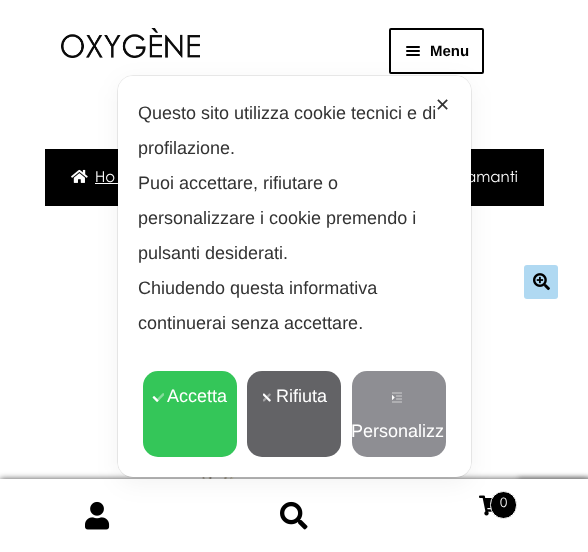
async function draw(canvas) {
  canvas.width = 588;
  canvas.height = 552;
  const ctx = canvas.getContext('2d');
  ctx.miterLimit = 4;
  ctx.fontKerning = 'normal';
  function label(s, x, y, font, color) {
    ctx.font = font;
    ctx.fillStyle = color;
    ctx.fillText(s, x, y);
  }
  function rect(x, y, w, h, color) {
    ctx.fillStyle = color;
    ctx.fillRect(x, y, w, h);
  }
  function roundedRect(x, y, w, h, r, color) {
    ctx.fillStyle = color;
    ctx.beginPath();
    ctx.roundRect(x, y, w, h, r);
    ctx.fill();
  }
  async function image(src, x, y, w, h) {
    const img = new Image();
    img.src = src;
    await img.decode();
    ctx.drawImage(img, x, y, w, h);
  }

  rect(0, 0, 588, 552, '#fff');
  await image('assets/img1.png', 61, 28, 139, 30);
  ctx.beginPath();
  ctx.roundRect(390, 29, 93, 44, 1);
  ctx.strokeStyle = '#000';
  ctx.lineWidth = 2;
  ctx.stroke();
  roundedRect(406, 46, 14, 2, 1, '#000');
  roundedRect(406, 50, 14, 2, 1, '#000');
  label('Menu', 430, 56, 'bold 15px Liberation Sans', '#000');
  roundedRect(406, 54, 14, 2, 1, '#000');
  rect(45, 149, 499, 57, '#000');
  await image('assets/img2.png', 71, 169, 17, 14);
  label('Ho', 95, 182, '500 15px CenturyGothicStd', '#fff');
  rect(95, 183, 23, 1, '#fff');
  label('amanti', 466, 182, '500 15px CenturyGothicStd', '#fff');
  roundedRect(524, 265, 34, 34, 3, '#b0d9f2');
  await image('assets/img3.png', 533, 273, 17, 18);
  await image('assets/img4.png', 165, 477, 111, 2);
  ctx.fillStyle = '#000000b3';
  ctx.filter = 'blur(3px)';
  ctx.beginPath();
  ctx.rect(0, 479, 588, 73);
  ctx.fill();
  ctx.filter = 'none';
  ctx.beginPath();
  ctx.roundRect(117.5, 75.5, 354, 402, 15.5);
  ctx.strokeStyle = '#00000014';
  ctx.lineWidth = 1;
  ctx.stroke();
  ctx.fillStyle = '#808080';
  ctx.filter = 'blur(2.5px)';
  ctx.beginPath();
  ctx.roundRect(518, 478, 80, 60, 2);
  ctx.fill();
  ctx.filter = 'none';
  rect(0, 479, 588, 1, '#fff');
  rect(0, 480, 588, 72, '#fff');
  await image('assets/img8.png', 85, 501, 25, 29);
  await image('assets/img9.png', 280, 501, 28, 29);
  await image('assets/img10.png', 479, 495, 13, 21);
  ctx.fillStyle = '#000';
  ctx.beginPath();
  ctx.roundRect(490.5, 491.5, 26, 27, 13);
  ctx.fill();
  ctx.strokeStyle = '#fff';
  ctx.stroke();
  ctx.fillStyle = '#0000000d';
  ctx.filter = 'blur(12px)';
  ctx.beginPath();
  ctx.roundRect(118, 82, 353, 401, 15);
  ctx.fill();
  ctx.filter = 'none';
  roundedRect(118, 76, 353, 401, 15, '#fff');
  label('✕', 435, 111, '18px DejaVu Sans', '#333');
  label('Questo sito utilizza cookie tecnici e di', 138, 119, '18px Liberation Sans', '#333');
  label('profilazione.', 138, 154, '18px Liberation Sans', '#333');
  label('Puoi accettare, rifiutare o', 138, 189, '18px Liberation Sans', '#333');
  label('personalizzare i cookie premendo i', 138, 224, '18px Liberation Sans', '#333');
  label('pulsanti desiderati.', 138, 259, '18px Liberation Sans', '#333');
  label('Chiudendo questa informativa', 138, 294, '18px Liberation Sans', '#333');
  label('continuerai senza accettare.', 138, 329, '18px Liberation Sans', '#333');
  roundedRect(143, 371, 94, 86, 15, '#34c659');
  await image('assets/img5.png', 152, 393, 12, 9);
  label('Accetta', 167, 402, '18px Liberation Sans', '#fff');
  roundedRect(247, 371, 94, 86, 15, '#636366');
  await image('assets/img6.png', 263, 393, 8, 9);
  label('Rifiuta', 276, 402, '18px Liberation Sans', '#fff');
  roundedRect(352, 371, 94, 86, 15, '#8e8e93');
  await image('assets/img7.png', 392, 392, 10, 11);
  label('Personalizz', 351, 437, '18px Liberation Sans', '#fff');
  label('0', 500, 507, '500 13px CenturyGothicStd', '#fff');
}

draw(document.querySelector('canvas'));
